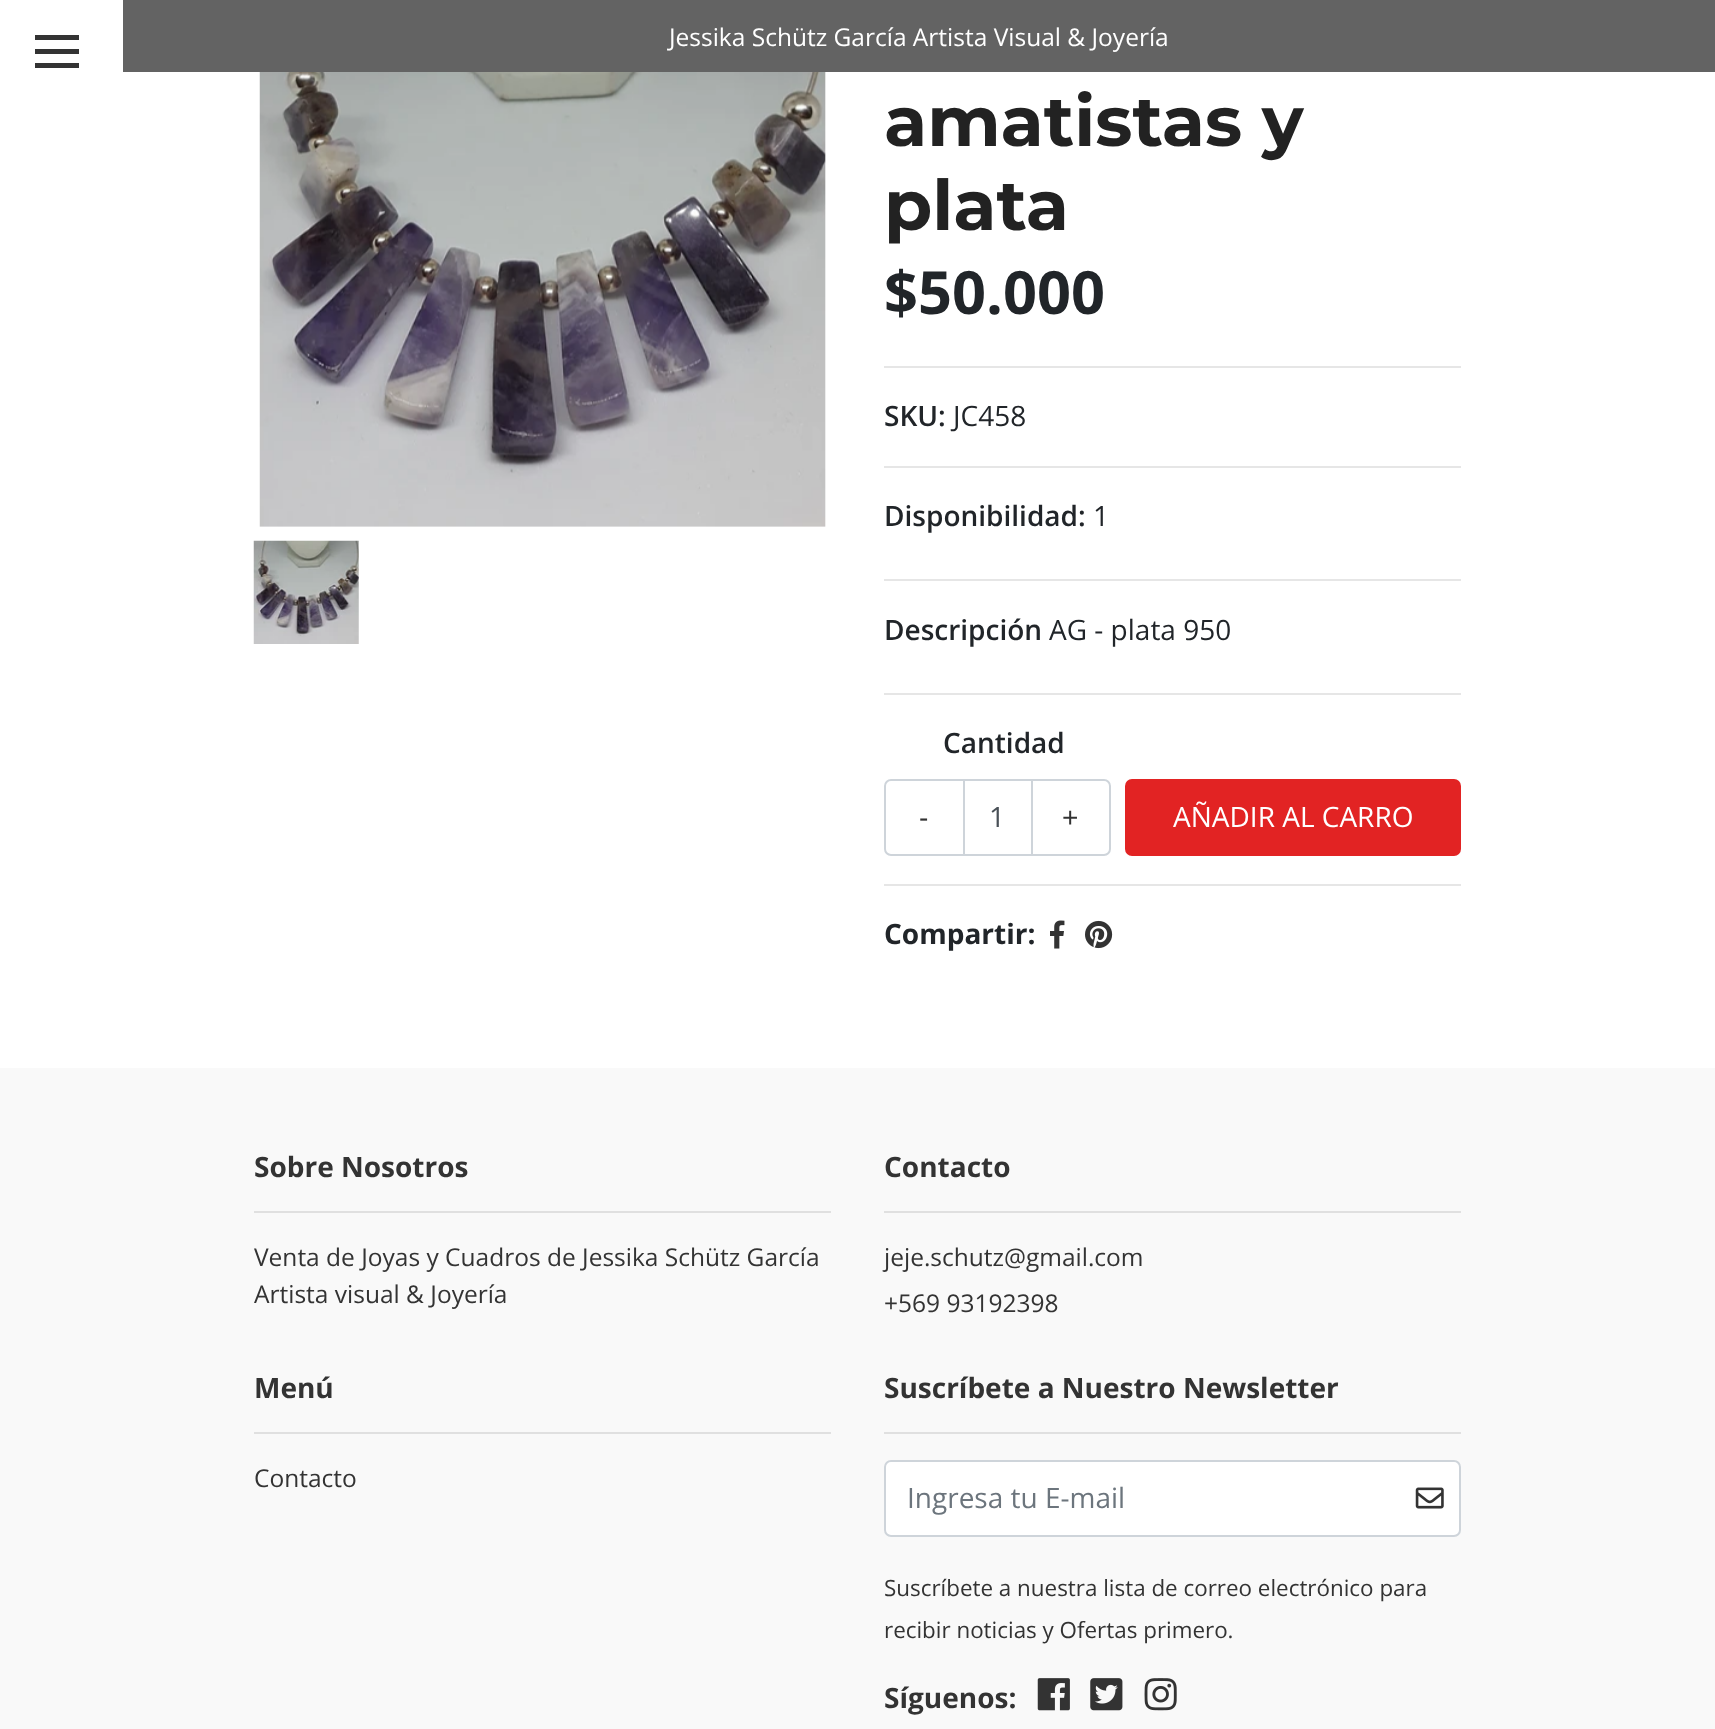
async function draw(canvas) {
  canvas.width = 1715;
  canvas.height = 1729;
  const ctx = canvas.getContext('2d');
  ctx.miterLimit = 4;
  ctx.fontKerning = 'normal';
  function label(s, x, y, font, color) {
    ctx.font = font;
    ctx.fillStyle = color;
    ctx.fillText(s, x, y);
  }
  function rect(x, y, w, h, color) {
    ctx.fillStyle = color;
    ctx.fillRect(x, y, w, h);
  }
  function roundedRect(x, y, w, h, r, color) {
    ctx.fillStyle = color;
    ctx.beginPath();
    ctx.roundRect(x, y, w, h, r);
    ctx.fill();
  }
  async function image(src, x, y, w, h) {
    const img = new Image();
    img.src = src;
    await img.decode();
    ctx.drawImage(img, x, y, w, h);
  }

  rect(0, 0, 1715, 1729, '#fff');
  rect(35, 35, 44, 5, '#333');
  rect(35, 49, 44, 5, '#333');
  rect(35, 63, 44, 5, '#333');
  rect(123, 0, 1592, 72, '#636363');
  label('Jessika Schütz García Artista Visual & Joyería', 669, 46, '24.5px Open Sans', '#fff');
  await image('assets/img1.png', 259, 72, 567, 455);
  await image('assets/img2.png', 253, 540, 106, 104);
  rect(884, 366, 577, 2, '#e6e6e6');
  label('amatistas y', 884, 146, 'bold 70px Montserrat', '#222');
  label('plata', 884, 230, 'bold 70px Montserrat', '#222');
  label('$50.000', 884, 314, 'bold 59.5px Open Sans', '#212529');
  rect(884, 466, 577, 2, '#e6e6e6');
  label('SKU:', 884, 426, '600 28px Open Sans', '#212529');
  label('JC458', 953, 426, '28px Open Sans', '#212529');
  rect(884, 579, 577, 2, '#e6e6e6');
  label('Disponibilidad:', 884, 526, '600 28px Open Sans', '#212529');
  label('1', 1093, 526, '28px Open Sans', '#212529');
  rect(884, 693, 577, 2, '#e6e6e6');
  label('Descripción', 884, 640, '600 28px Open Sans', '#212529');
  label('AG - plata 950', 1049, 640, '28px Open Sans', '#212529');
  rect(884, 884, 577, 2, '#e6e6e6');
  label('Cantidad', 943, 753, '600 28px Open Sans', '#212529');
  ctx.beginPath();
  ctx.roundRect(885, 780, 225, 75, 6);
  ctx.strokeStyle = '#ced4da';
  ctx.lineWidth = 2;
  ctx.stroke();
  label('1', 989, 827, '28px Open Sans', '#495057');
  rect(963, 781, 2, 73, '#ced4da');
  label('-', 919, 827, '28px Liberation Sans', '#333');
  rect(1031, 781, 2, 73, '#ced4da');
  label('+', 1062, 827, '28px Liberation Sans', '#333');
  roundedRect(1125, 779, 336, 77, 7, '#e22323');
  label('AÑADIR AL CARRO', 1173, 827, '28px Open Sans', '#fff');
  label('Compartir:', 884, 944, 'bold 28px Open Sans', '#212529');
  await image('assets/img3.png', 1050, 920, 15, 29);
  await image('assets/img4.png', 1085, 920, 28, 29);
  rect(0, 1068, 1715, 661, '#f9f9f9');
  rect(254, 1211, 577, 2, '#e0e0e0');
  label('Sobre Nosotros', 254, 1177, 'bold 28px Open Sans', '#333');
  label('Venta de Joyas y Cuadros de Jessika Schütz García', 254, 1266, '24.5px Open Sans', '#333');
  label('Artista visual & Joyería', 254, 1303, '24.5px Open Sans', '#333');
  rect(884, 1211, 577, 2, '#e0e0e0');
  label('Contacto', 884, 1177, 'bold 28px Open Sans', '#333');
  label('jeje.schutz@gmail.com', 884, 1266, '24.5px Open Sans', '#333');
  label('+569 93192398', 884, 1312, '24.5px Open Sans', '#333');
  rect(254, 1432, 577, 2, '#e0e0e0');
  label('Menú', 254, 1398, 'bold 28px Open Sans', '#333');
  label('Contacto', 254, 1487, '24.5px Open Sans', '#333');
  rect(884, 1432, 577, 2, '#e0e0e0');
  label('Suscríbete a Nuestro Newsletter', 884, 1398, 'bold 28px Open Sans', '#333');
  ctx.fillStyle = '#fff';
  ctx.beginPath();
  ctx.roundRect(885, 1461, 575, 75, 6);
  ctx.fill();
  ctx.stroke();
  label('Ingresa tu E-mail', 907, 1508, '28px Open Sans', '#6c757d');
  await image('assets/img5.png', 1415, 1487, 29, 22);
  label('Suscríbete a nuestra lista de correo electrónico para', 884, 1596, '22.4px Open Sans', '#333');
  label('recibir noticias y Ofertas primero.', 884, 1638, '22.4px Open Sans', '#333');
  label('Síguenos:', 884, 1708, 'bold 28px Open Sans', '#333');
  await image('assets/img6.png', 1037, 1678, 33, 33);
  await image('assets/img7.png', 1090, 1678, 33, 33);
  await image('assets/img8.png', 1144, 1678, 33, 33);
}

draw(document.querySelector('canvas'));
